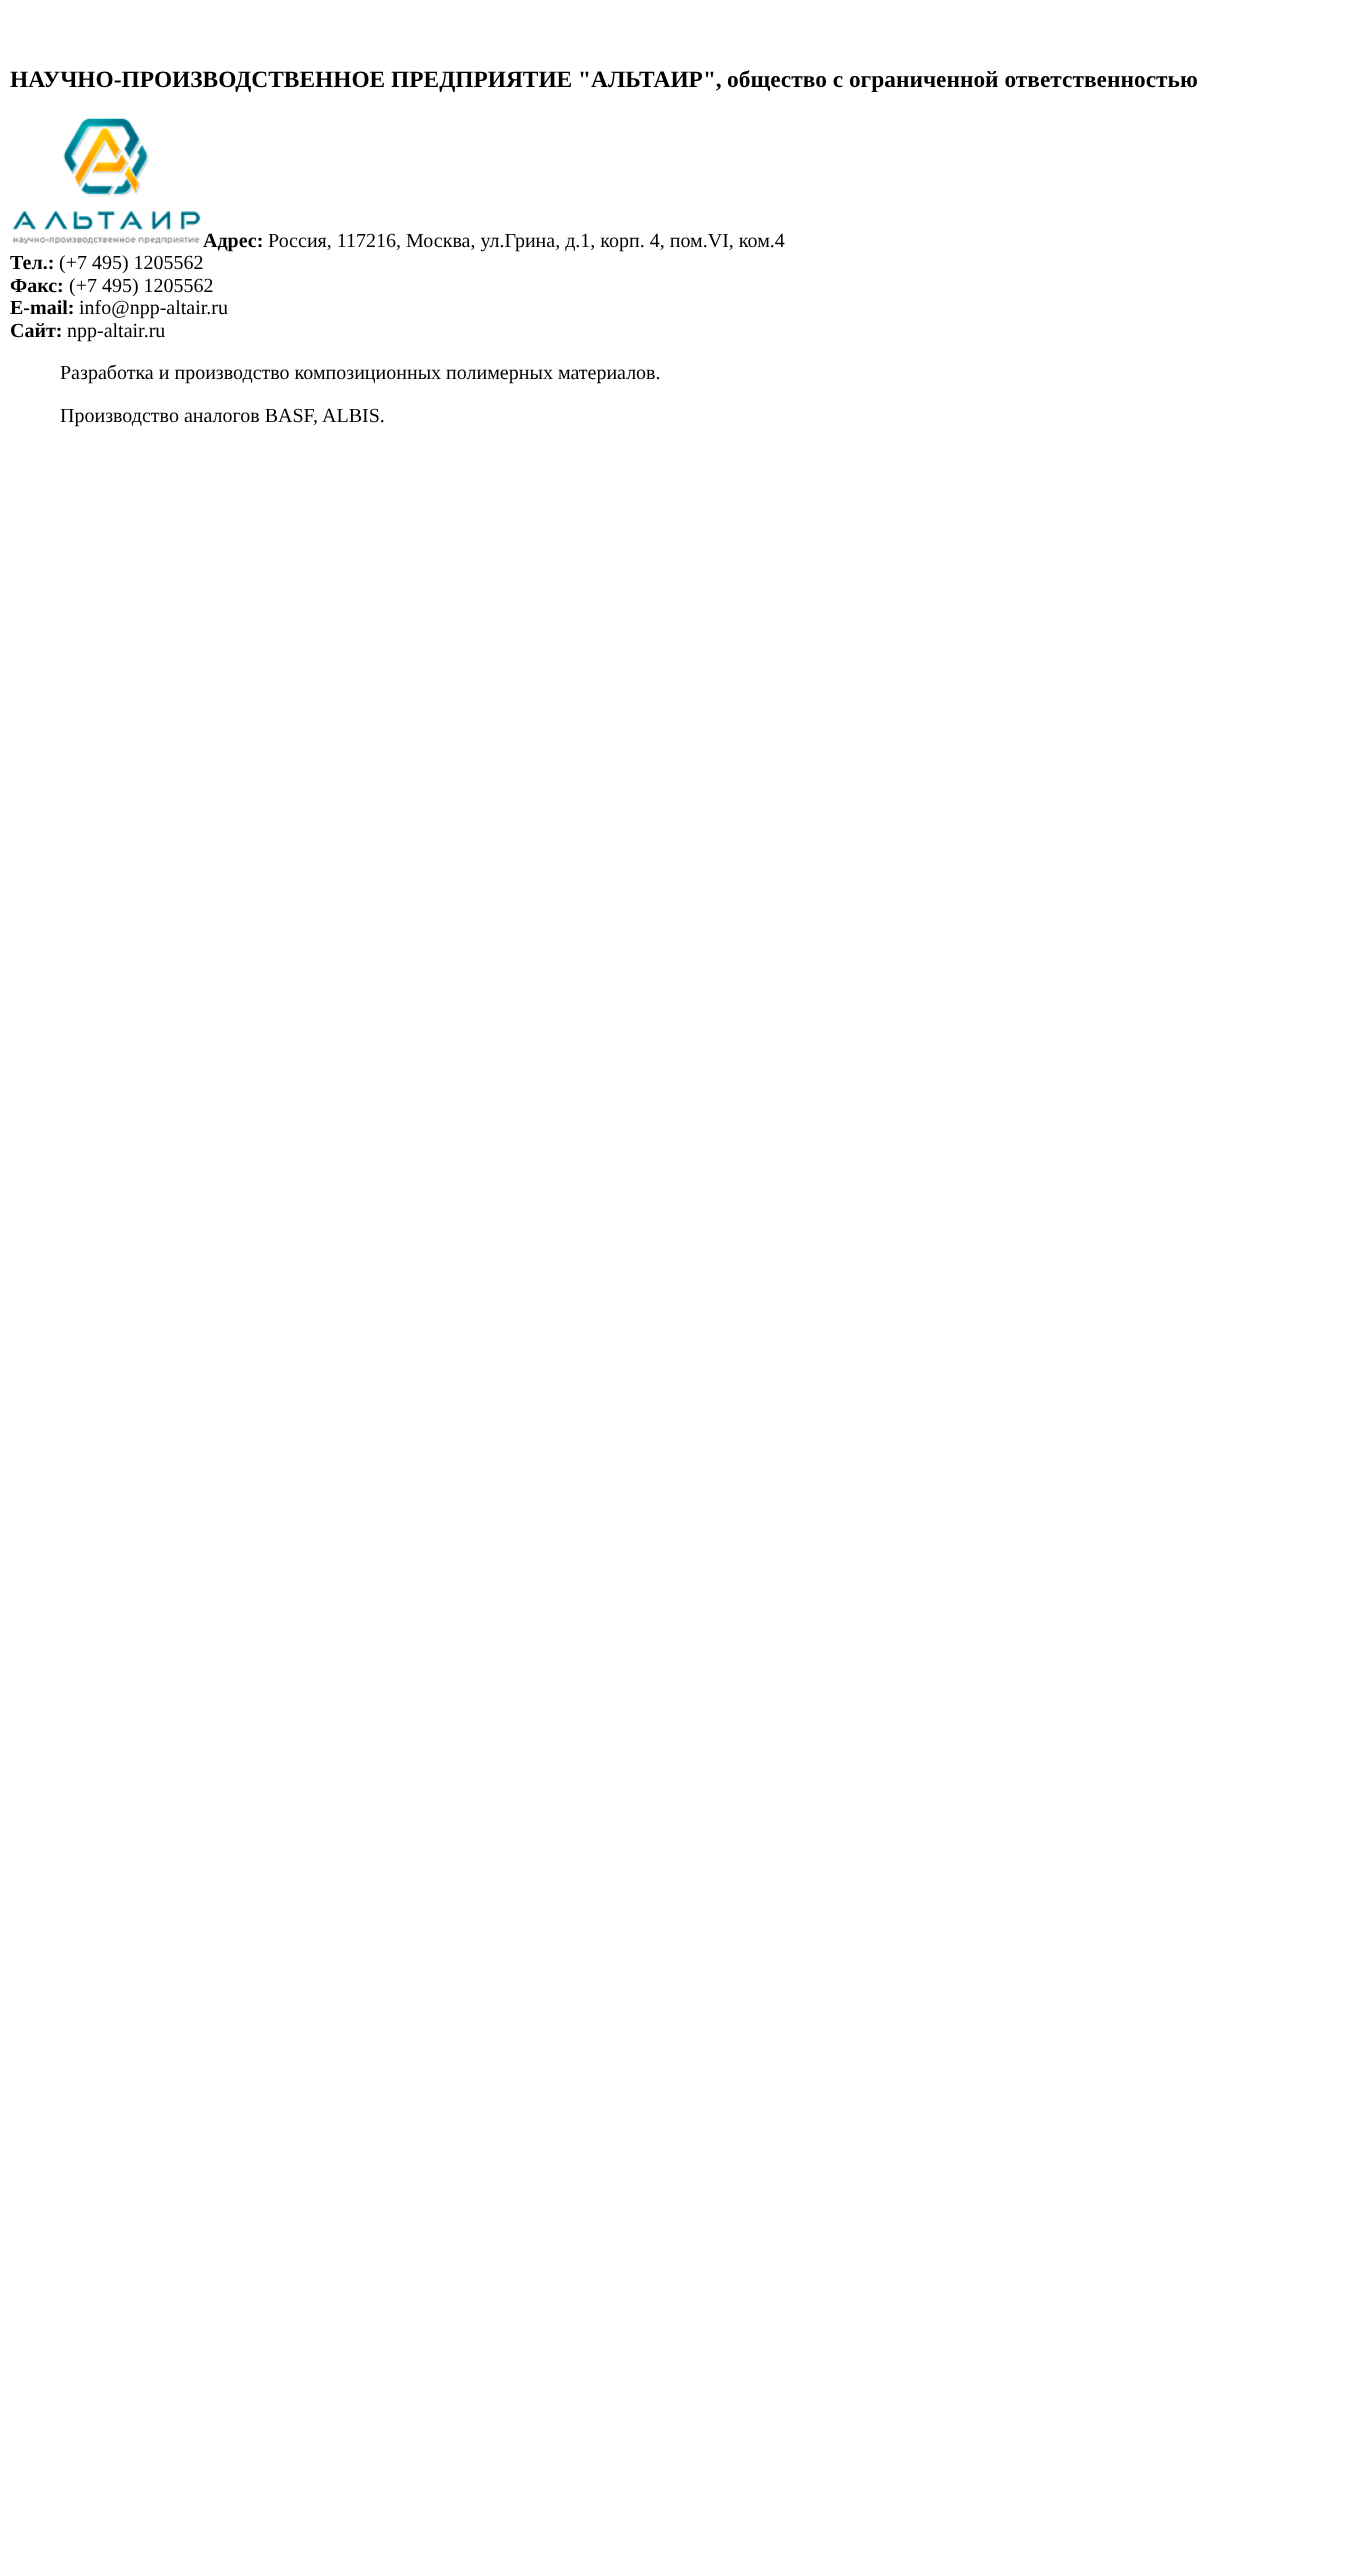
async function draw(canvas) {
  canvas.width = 1361;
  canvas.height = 2560;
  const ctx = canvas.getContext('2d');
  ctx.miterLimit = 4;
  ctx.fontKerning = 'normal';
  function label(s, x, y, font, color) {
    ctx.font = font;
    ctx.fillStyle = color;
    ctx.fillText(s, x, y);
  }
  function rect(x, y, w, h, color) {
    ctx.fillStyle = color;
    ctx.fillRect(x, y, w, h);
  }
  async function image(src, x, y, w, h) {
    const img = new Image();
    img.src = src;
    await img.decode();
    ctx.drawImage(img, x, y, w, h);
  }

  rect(0, 0, 1361, 2560, '#fff');
  label('НАУЧНО-ПРОИЗВОДСТВЕННОЕ ПРЕДПРИЯТИЕ "АЛЬТАИР",', 10, 87, 'bold 23.4px Liberation Serif', '#000');
  label('общество с ограниченной ответственностью', 727, 87, 'bold 23.4px Liberation Serif', '#000');
  await image('assets/img1.png', 12, 118, 189, 126);
  label('Адрес:', 203, 247, 'bold 20px Liberation Serif', '#000');
  label('Россия, 117216, Москва, ул.Грина, д.1, корп. 4, пом.VI, ком.4', 268, 247, '20px Liberation Serif', '#000');
  label('Тел.:', 10, 269, 'bold 20px Liberation Serif', '#000');
  label('(+7 495) 1205562', 59, 269, '20px Liberation Serif', '#000');
  label('Факс:', 10, 292, 'bold 20px Liberation Serif', '#000');
  label('(+7 495) 1205562', 69, 292, '20px Liberation Serif', '#000');
  label('E-mail:', 10, 314, 'bold 20px Liberation Serif', '#000');
  label('info@npp-altair.ru', 79, 314, '20px Liberation Serif', '#000');
  label('Сайт:', 10, 337, 'bold 20px Liberation Serif', '#000');
  label('npp-altair.ru', 67, 337, '20px Liberation Serif', '#000');
  label('Разработка и производство композиционных полимерных материалов.', 60, 379, '20px Liberation Serif', '#000');
  label('Производство аналогов BASF,', 60, 422, '20px Liberation Serif', '#000');
  label('ALBIS.', 322, 422, '20px Liberation Serif', '#000');
}

draw(document.querySelector('canvas'));
